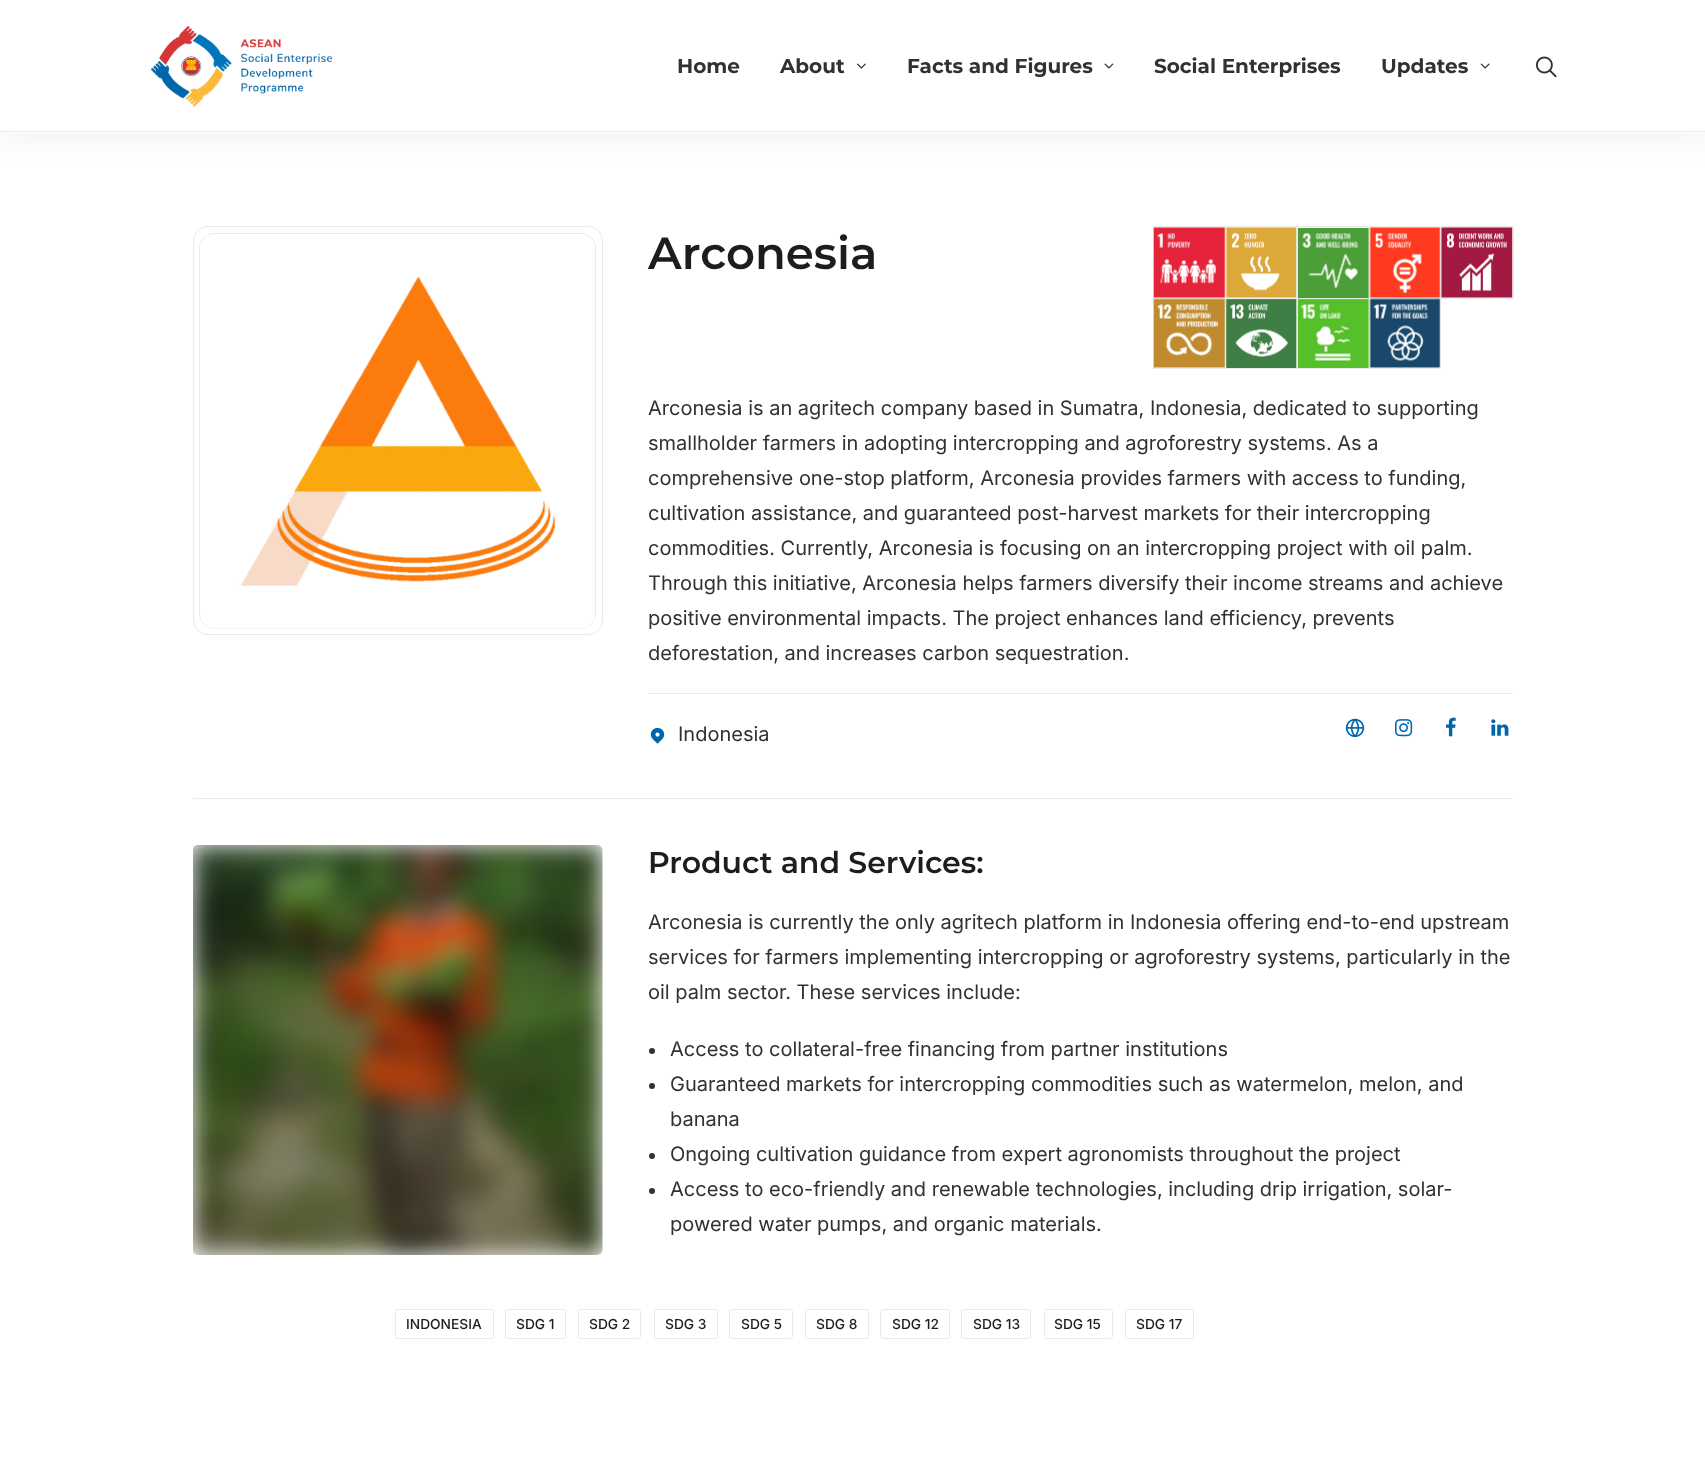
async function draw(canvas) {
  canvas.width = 1705;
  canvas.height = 1483;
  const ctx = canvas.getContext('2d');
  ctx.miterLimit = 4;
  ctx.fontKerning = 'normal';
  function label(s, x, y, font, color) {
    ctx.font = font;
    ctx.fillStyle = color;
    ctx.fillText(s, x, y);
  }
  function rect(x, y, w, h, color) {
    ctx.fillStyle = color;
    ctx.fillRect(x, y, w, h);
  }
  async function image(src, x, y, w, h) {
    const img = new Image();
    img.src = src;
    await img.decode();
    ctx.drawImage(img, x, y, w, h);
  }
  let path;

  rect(0, 0, 1705, 1483, '#fff');
  ctx.fillStyle = '#00000012';
  ctx.filter = 'blur(19px)';
  ctx.beginPath();
  ctx.rect(-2, 0, 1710, 133);
  ctx.fill();
  ctx.filter = 'none';
  rect(0, 0, 1705, 133, '#fff');
  await image('assets/img1.png', 151, 26, 181, 81);
  label('Home', 677, 73, 'bold 20px Montserrat', '#303133');
  label('About', 780, 73, 'bold 20px Montserrat', '#303133');
  await image('assets/img2.png', 857, 63, 9, 6);
  label('Facts and Figures', 907, 73, 'bold 20px Montserrat', '#303133');
  await image('assets/img3.png', 1104, 63, 10, 6);
  label('Social Enterprises', 1154, 73, 'bold 20px Montserrat', '#303133');
  label('Updates', 1381, 73, 'bold 20px Montserrat', '#303133');
  await image('assets/img4.png', 1480, 63, 10, 6);
  await image('assets/img5.png', 1535, 56, 22, 22);
  rect(0, 131, 1705, 1, '#eaeaeb');
  ctx.beginPath();
  ctx.roundRect(193.5, 226.5, 409, 408, 14.5);
  ctx.strokeStyle = '#eaeaea';
  ctx.stroke();
  ctx.beginPath();
  ctx.roundRect(199.5, 233.5, 396, 395, 14.5);
  ctx.stroke();
  await image('assets/img6.png', 200, 234, 395, 395);
  label('Arconesia', 648, 269, '600 45px Montserrat', '#1b1d1f');
  ctx.strokeRect(1153.5, 226.5, 72, 72);
  ctx.strokeRect(1225.5, 226.5, 72, 72);
  await image('assets/img7.png', 1153, 227, 73, 71);
  ctx.strokeRect(1296.5, 226.5, 73, 72);
  await image('assets/img8.png', 1226, 227, 71, 71);
  await image('assets/img9.png', 1298, 228, 71, 70);
  ctx.strokeRect(1369.5, 226.5, 71, 72);
  ctx.strokeRect(1440.5, 226.5, 73, 72);
  await image('assets/img10.png', 1369, 227, 72, 71);
  await image('assets/img11.png', 1441, 227, 72, 71);
  ctx.strokeRect(1153.5, 298.5, 72, 70);
  ctx.strokeRect(1225.5, 298.5, 72, 70);
  await image('assets/img12.png', 1153, 298, 73, 70);
  ctx.strokeRect(1296.5, 298.5, 73, 70);
  await image('assets/img13.png', 1226, 299, 71, 69);
  await image('assets/img14.png', 1298, 299, 71, 69);
  ctx.strokeRect(1369.5, 298.5, 71, 70);
  await image('assets/img15.png', 1369, 298, 72, 70);
  label('Arconesia is an agritech company based in Sumatra, Indonesia, dedicated to supporting', 648, 415, '20px Inter', '#303133');
  label('smallholder farmers in adopting intercropping and agroforestry systems. As a', 648, 450, '20px Inter', '#303133');
  label('comprehensive one-stop platform, Arconesia provides farmers with access to funding,', 648, 485, '20px Inter', '#303133');
  label('cultivation assistance, and guaranteed post-harvest markets for their intercropping', 648, 520, '20px Inter', '#303133');
  label('commodities. Currently, Arconesia is focusing on an intercropping project with oil palm.', 648, 555, '20px Inter', '#303133');
  label('Through this initiative, Arconesia helps farmers diversify their income streams and achieve', 648, 590, '20px Inter', '#303133');
  label('positive environmental impacts. The project enhances land efficiency, prevents', 648, 625, '20px Inter', '#303133');
  label('deforestation, and increases carbon sequestration.', 648, 660, '20px Inter', '#303133');
  rect(648, 693, 865, 1, '#eaeaea');
  await image('assets/img16.png', 650, 727, 15, 17);
  label('Indonesia', 678, 741, '20px Inter', '#303133');
  await image('assets/img17.png', 1345, 718, 20, 20);
  await image('assets/img18.png', 1395, 719, 18, 18);
  await image('assets/img19.png', 1446, 717, 10, 20);
  await image('assets/img20.png', 1491, 719, 18, 17);
  rect(193, 798, 1320, 1, '#eaeaea');
  ctx.fillStyle = '#303133';
  ctx.beginPath();
  ctx.arc(652, 1051, 3, 0, 2 * Math.PI);
  ctx.fill();
  ctx.beginPath();
  ctx.arc(652, 1086, 3, 0, 2 * Math.PI);
  ctx.fill();
  ctx.beginPath();
  ctx.arc(652, 1156, 3, 0, 2 * Math.PI);
  ctx.fill();
  ctx.beginPath();
  ctx.arc(652, 1191, 3, 0, 2 * Math.PI);
  ctx.fill();
  ctx.beginPath();
  ctx.roundRect(395.5, 1309.5, 98, 29, 2);
  ctx.stroke();
  ctx.beginPath();
  ctx.roundRect(505.5, 1309.5, 60, 29, 2);
  ctx.stroke();
  ctx.beginPath();
  ctx.roundRect(578.5, 1309.5, 62, 29, 2);
  ctx.stroke();
  ctx.beginPath();
  ctx.roundRect(654.5, 1309.5, 63, 29, 2);
  ctx.stroke();
  ctx.beginPath();
  ctx.roundRect(729.5, 1309.5, 63, 29, 2);
  ctx.stroke();
  ctx.save();
  ctx.beginPath();
  ctx.rect(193, 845, 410, 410);
  ctx.clip();
  path = new Path2D('M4 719H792V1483H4ZM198 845H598C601 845 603 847 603 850V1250C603 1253 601 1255 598 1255H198C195 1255 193 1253 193 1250V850C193 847 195 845 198 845Z');
  ctx.clip(path, 'evenodd');
  ctx.fillStyle = '#0000001a';
  ctx.filter = 'blur(62.5px)';
  ctx.beginPath();
  ctx.roundRect(193, 908, 410, 410, 5);
  ctx.fill();
  ctx.filter = 'none';
  ctx.restore();
  await image('assets/img21.png', 193, 845, 410, 410);
  label('Product and Services:', 648, 873, '600 30px Montserrat', '#1b1d1f');
  label('Arconesia is currently the only agritech platform in Indonesia offering end-to-end upstream', 648, 929, '20px Inter', '#303133');
  label('services for farmers implementing intercropping or agroforestry systems, particularly in the', 648, 964, '20px Inter', '#303133');
  label('oil palm sector. These services include:', 648, 999, '20px Inter', '#303133');
  label('Access to collateral-free financing from partner institutions', 670, 1056, '20px Inter', '#303133');
  label('Guaranteed markets for intercropping commodities such as watermelon, melon, and', 670, 1091, '20px Inter', '#303133');
  label('banana', 670, 1126, '20px Inter', '#303133');
  label('Ongoing cultivation guidance from expert agronomists throughout the project', 670, 1161, '20px Inter', '#303133');
  label('Access to eco-friendly and renewable technologies, including drip irrigation, solar-', 670, 1196, '20px Inter', '#303133');
  label('powered water pumps, and organic materials.', 670, 1231, '20px Inter', '#303133');
  label('INDONESIA', 406, 1329, '500 13.75px Inter', '#1b1d1f');
  label('SDG 1', 516, 1329, '500 13.75px Inter', '#1b1d1f');
  label('SDG 2', 589, 1329, '500 13.75px Inter', '#1b1d1f');
  label('SDG 3', 665, 1329, '500 13.75px Inter', '#1b1d1f');
  label('SDG 5', 741, 1329, '500 13.75px Inter', '#1b1d1f');
  ctx.beginPath();
  ctx.roundRect(805.5, 1309.5, 63, 29, 2);
  ctx.stroke();
  label('SDG 8', 816, 1329, '500 13.75px Inter', '#1b1d1f');
  ctx.beginPath();
  ctx.roundRect(880.5, 1309.5, 69, 29, 2);
  ctx.stroke();
  label('SDG 12', 892, 1329, '500 13.75px Inter', '#1b1d1f');
  ctx.beginPath();
  ctx.roundRect(961.5, 1309.5, 69, 29, 2);
  ctx.stroke();
  label('SDG 13', 973, 1329, '500 13.75px Inter', '#1b1d1f');
  ctx.beginPath();
  ctx.roundRect(1044.5, 1309.5, 68, 29, 2);
  ctx.stroke();
  label('SDG 15', 1054, 1329, '500 13.75px Inter', '#1b1d1f');
  ctx.beginPath();
  ctx.roundRect(1125.5, 1309.5, 68, 29, 2);
  ctx.stroke();
  label('SDG 17', 1136, 1329, '500 13.75px Inter', '#1b1d1f');
}

draw(document.querySelector('canvas'));
